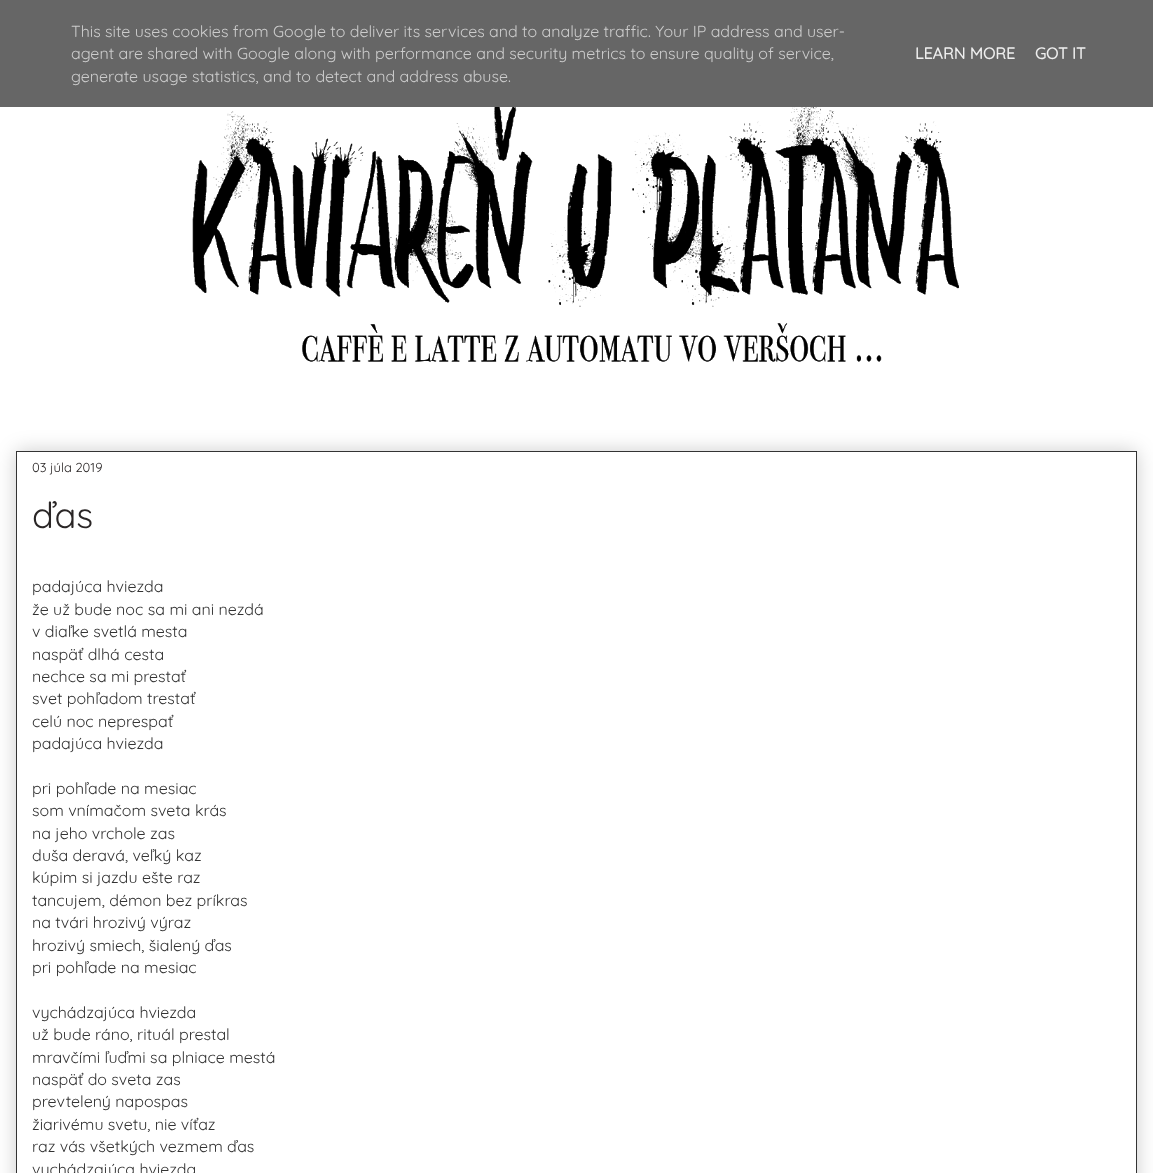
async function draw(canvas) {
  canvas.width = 1153;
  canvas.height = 1173;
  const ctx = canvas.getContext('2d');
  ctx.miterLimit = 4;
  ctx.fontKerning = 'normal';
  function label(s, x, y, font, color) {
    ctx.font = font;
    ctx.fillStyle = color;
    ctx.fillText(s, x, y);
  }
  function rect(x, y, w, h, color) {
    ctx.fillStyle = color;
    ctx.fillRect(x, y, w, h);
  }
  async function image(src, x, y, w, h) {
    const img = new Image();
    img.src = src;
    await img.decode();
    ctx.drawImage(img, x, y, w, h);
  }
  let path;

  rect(0, 0, 1153, 1173, '#fff');
  rect(0, 0, 1153, 107, '#666');
  label('This site uses cookies from Google to deliver its services and to analyze traffic. Your IP address and user-', 71, 37, '300 16px Quicksand', '#ccc');
  label('agent are shared with Google along with performance and security metrics to ensure quality of service,', 71, 59, '300 16px Quicksand', '#ccc');
  label('generate usage statistics, and to detect and address abuse.', 71, 82, '300 16px Quicksand', '#ccc');
  label('LEARN MORE', 915, 59, 'bold 16px Quicksand', '#eee');
  label('GOT IT', 1035, 59, 'bold 16px Quicksand', '#eee');
  await image('assets/img1.png', 192, 107, 768, 255);
  ctx.save();
  path = new Path2D('M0 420H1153V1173H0ZM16 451H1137V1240C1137 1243 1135 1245 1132 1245H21C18 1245 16 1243 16 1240Z');
  ctx.clip(path, 'evenodd');
  ctx.fillStyle = '#00000033';
  ctx.filter = 'blur(10px)';
  ctx.beginPath();
  ctx.roundRect(16, 451, 1121, 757, 5);
  ctx.fill();
  ctx.filter = 'none';
  ctx.restore();
  ctx.strokeStyle = '#333';
  ctx.strokeRect(16.5, 451.5, 1120, 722);
  label('03 júla 2019', 32, 472, '300 13px Quicksand', '#2a2626');
  label('ďas', 32, 528, '300 36px Quicksand', '#2a2626');
  label('padajúca hviezda', 32, 592, '300 16px Quicksand', '#333');
  label('že už bude noc sa mi ani nezdá', 32, 615, '300 16px Quicksand', '#333');
  label('v diaľke svetlá mesta', 32, 637, '300 16px Quicksand', '#333');
  label('naspäť dlhá cesta', 32, 660, '300 16px Quicksand', '#333');
  label('nechce sa mi prestať', 32, 682, '300 16px Quicksand', '#333');
  label('svet pohľadom trestať', 32, 704, '300 16px Quicksand', '#333');
  label('celú noc neprespať', 32, 727, '300 16px Quicksand', '#333');
  label('padajúca hviezda', 32, 749, '300 16px Quicksand', '#333');
  label('pri pohľade na mesiac', 32, 794, '300 16px Quicksand', '#333');
  label('som vnímačom sveta krás', 32, 816, '300 16px Quicksand', '#333');
  label('na jeho vrchole zas', 32, 839, '300 16px Quicksand', '#333');
  label('duša deravá, veľký kaz', 32, 861, '300 16px Quicksand', '#333');
  label('kúpim si jazdu ešte raz', 32, 883, '300 16px Quicksand', '#333');
  label('tancujem, démon bez príkras', 32, 906, '300 16px Quicksand', '#333');
  label('na tvári hrozivý výraz', 32, 928, '300 16px Quicksand', '#333');
  label('hrozivý smiech, šialený ďas', 32, 951, '300 16px Quicksand', '#333');
  label('pri pohľade na mesiac', 32, 973, '300 16px Quicksand', '#333');
  label('vychádzajúca hviezda', 32, 1018, '300 16px Quicksand', '#333');
  label('už bude ráno, rituál prestal', 32, 1040, '300 16px Quicksand', '#333');
  label('mravčími ľuďmi sa plniace mestá', 32, 1063, '300 16px Quicksand', '#333');
  label('naspäť do sveta zas', 32, 1085, '300 16px Quicksand', '#333');
  label('prevtelený napospas', 32, 1107, '300 16px Quicksand', '#333');
  label('žiarivému svetu, nie víťaz', 32, 1130, '300 16px Quicksand', '#333');
  label('raz vás všetkých vezmem ďas', 32, 1152, '300 16px Quicksand', '#333');
  label('vychádzajúca hviezda', 32, 1175, '300 16px Quicksand', '#333');
}

draw(document.querySelector('canvas'));
